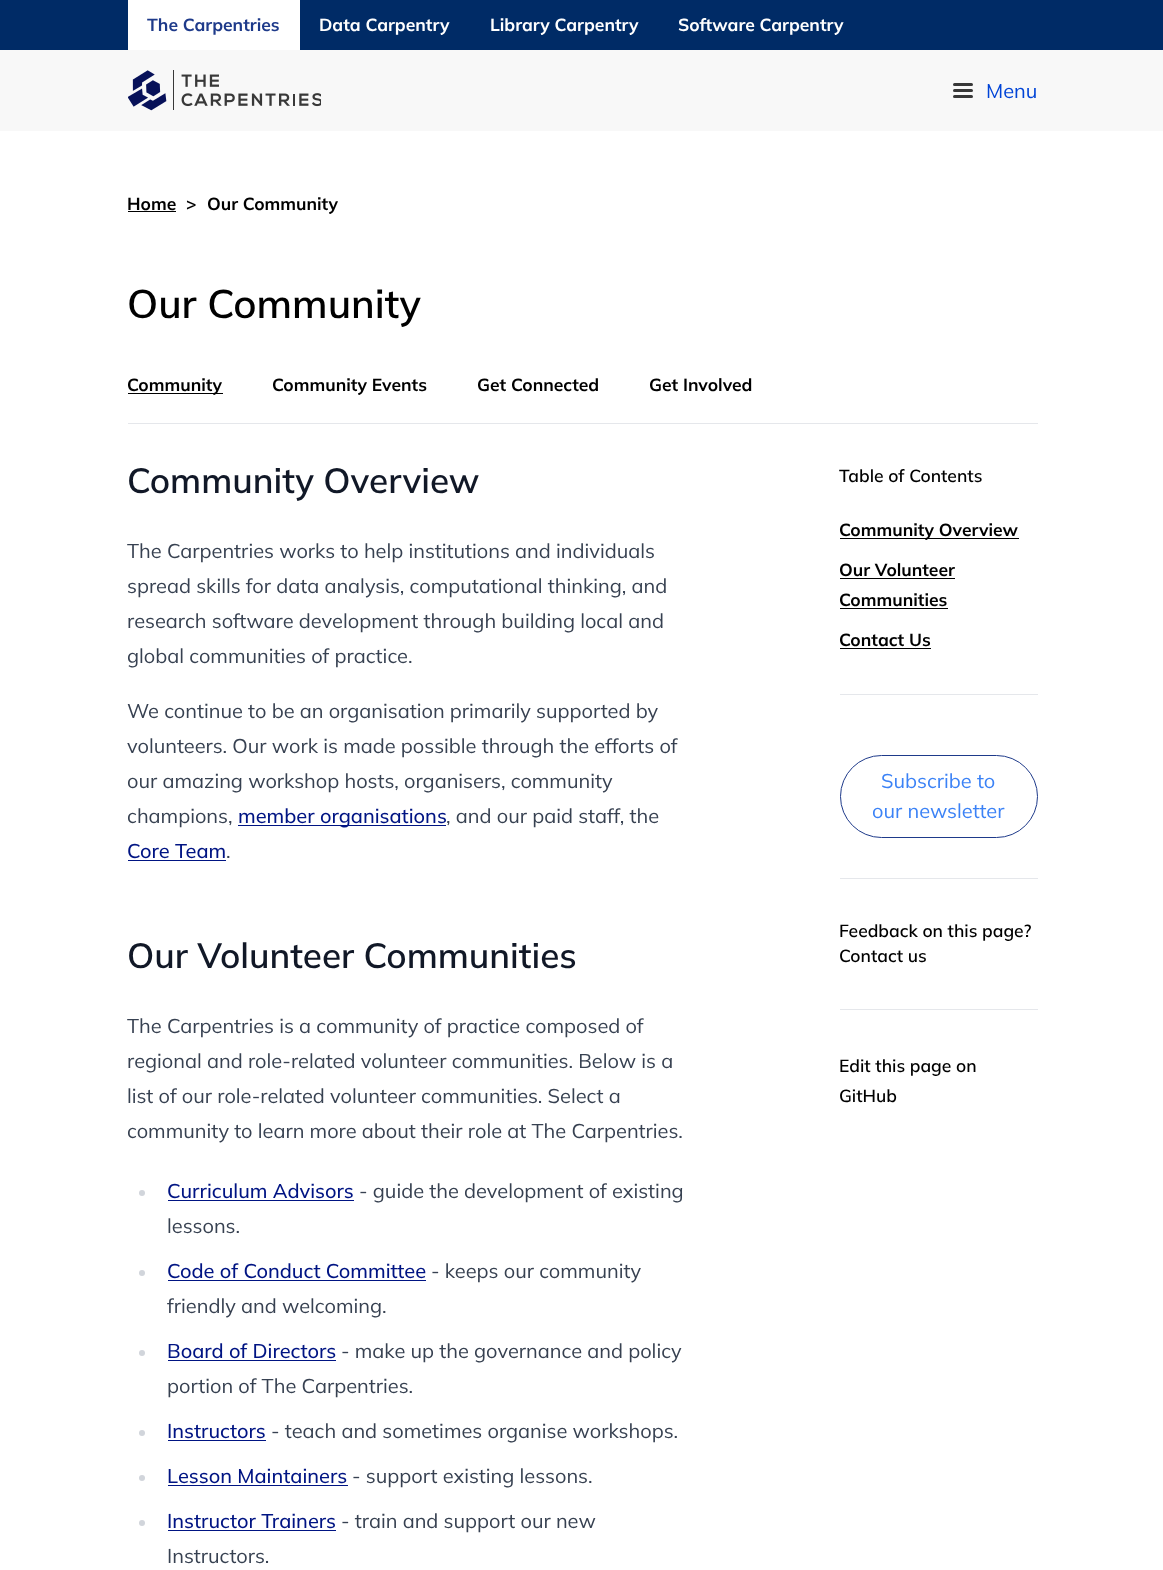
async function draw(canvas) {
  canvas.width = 1163;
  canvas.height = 1570;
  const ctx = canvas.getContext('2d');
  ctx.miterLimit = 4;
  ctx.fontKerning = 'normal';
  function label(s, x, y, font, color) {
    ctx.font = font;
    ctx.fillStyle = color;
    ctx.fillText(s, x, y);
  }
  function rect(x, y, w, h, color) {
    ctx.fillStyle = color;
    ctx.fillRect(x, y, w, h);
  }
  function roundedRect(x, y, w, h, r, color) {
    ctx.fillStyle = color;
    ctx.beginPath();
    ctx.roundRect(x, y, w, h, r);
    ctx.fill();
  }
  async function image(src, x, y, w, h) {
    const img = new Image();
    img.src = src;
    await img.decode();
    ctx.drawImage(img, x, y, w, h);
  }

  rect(0, 0, 1163, 1570, '#fff');
  rect(0, 0, 1163, 50, '#002b66');
  rect(128, 0, 172, 50, '#fff');
  label('The Carpentries', 147, 31, 'bold 17.5px Mulish', '#1e3a8a');
  label('Data Carpentry', 319, 31, 'bold 17.5px Mulish', '#fff');
  label('Library Carpentry', 490, 31, 'bold 17.5px Mulish', '#fff');
  label('Software Carpentry', 678, 31, 'bold 17.5px Mulish', '#fff');
  rect(0, 50, 1163, 81, '#f8f8f8');
  await image('assets/img1.png', 128, 70, 193, 41);
  roundedRect(953, 83, 20, 3, 1.5, '#383838');
  roundedRect(953, 89, 20, 3, 1.5, '#383838');
  roundedRect(953, 95, 20, 3, 1.5, '#383838');
  label('Menu', 986, 98, '20px Mulish', '#0044d7');
  label('Home', 127, 210, 'bold 17.5px Mulish', '#000');
  rect(128, 211, 48, 1, '#000');
  label('>', 186, 210, 'bold 17.5px Mulish', '#000');
  label('Our Community', 207, 210, 'bold 17.5px Mulish', '#000');
  label('Our Community', 127, 318, '600 40px Mulish', '#000');
  rect(128, 423, 910, 1, '#e5e7eb');
  rect(128, 393, 95, 1, '#000');
  label('Community', 127, 391, 'bold 17.5px Mulish', '#000');
  label('Community Events', 272, 391, 'bold 17.5px Mulish', '#000');
  label('Get Connected', 477, 391, 'bold 17.5px Mulish', '#000');
  label('Get Involved', 649, 391, 'bold 17.5px Mulish', '#000');
  label('Community Overview', 127, 493, '600 35px Mulish', '#111827');
  label('The Carpentries works to help institutions and individuals', 127, 558, '20px Mulish', '#374151');
  label('spread skills for data analysis, computational thinking, and', 127, 593, '20px Mulish', '#374151');
  label('research software development through building local and', 127, 628, '20px Mulish', '#374151');
  label('global communities of practice.', 127, 663, '20px Mulish', '#374151');
  label('We continue to be an organisation primarily supported by', 127, 718, '20px Mulish', '#374151');
  label('volunteers. Our work is made possible through the efforts of', 127, 753, '20px Mulish', '#374151');
  label('our amazing workshop hosts, organisers, community', 127, 788, '20px Mulish', '#374151');
  label('champions,', 127, 823, '20px Mulish', '#374151');
  rect(238, 825, 208, 1, '#001483');
  label('member organisations', 238, 823, '500 20px Mulish', '#001483');
  label(', and our paid staff, the', 446, 823, '20px Mulish', '#374151');
  label('Core Team', 127, 858, '500 20px Mulish', '#001483');
  rect(128, 860, 98, 1, '#001483');
  label('.', 226, 858, '20px Mulish', '#374151');
  label('Our Volunteer Communities', 127, 968, '600 35px Mulish', '#111827');
  label('The Carpentries is a community of practice composed of', 127, 1033, '20px Mulish', '#374151');
  label('regional and role-related volunteer communities. Below is a', 127, 1068, '20px Mulish', '#374151');
  label('list of our role-related volunteer communities. Select a', 127, 1103, '20px Mulish', '#374151');
  label('community to learn more about their role at The Carpentries.', 127, 1138, '20px Mulish', '#374151');
  ctx.fillStyle = '#d1d5db';
  ctx.beginPath();
  ctx.arc(142, 1193, 3, 0, 2 * Math.PI);
  ctx.fill();
  label('Curriculum Advisors', 167, 1198, '500 20px Mulish', '#001483');
  rect(168, 1200, 186, 1, '#001483');
  label('- guide the development of existing', 359, 1198, '20px Mulish', '#374151');
  label('lessons.', 167, 1233, '20px Mulish', '#374151');
  ctx.fillStyle = '#d1d5db';
  ctx.beginPath();
  ctx.arc(142, 1273, 3, 0, 2 * Math.PI);
  ctx.fill();
  label('Code of Conduct Committee', 167, 1278, '500 20px Mulish', '#001483');
  rect(168, 1280, 258, 1, '#001483');
  label('- keeps our community', 431, 1278, '20px Mulish', '#374151');
  label('friendly and welcoming.', 167, 1313, '20px Mulish', '#374151');
  ctx.fillStyle = '#d1d5db';
  ctx.beginPath();
  ctx.arc(142, 1353, 3, 0, 2 * Math.PI);
  ctx.fill();
  label('Board of Directors', 167, 1358, '500 20px Mulish', '#001483');
  rect(168, 1360, 168, 1, '#001483');
  label('- make up the governance and policy', 341, 1358, '20px Mulish', '#374151');
  label('portion of The Carpentries.', 167, 1393, '20px Mulish', '#374151');
  ctx.fillStyle = '#d1d5db';
  ctx.beginPath();
  ctx.arc(142, 1433, 3, 0, 2 * Math.PI);
  ctx.fill();
  label('Instructors', 167, 1438, '500 20px Mulish', '#001483');
  rect(168, 1440, 98, 1, '#001483');
  label('- teach and sometimes organise workshops.', 271, 1438, '20px Mulish', '#374151');
  ctx.fillStyle = '#d1d5db';
  ctx.beginPath();
  ctx.arc(142, 1478, 3, 0, 2 * Math.PI);
  ctx.fill();
  label('Lesson Maintainers', 167, 1483, '500 20px Mulish', '#001483');
  rect(168, 1485, 180, 1, '#001483');
  label('- support existing lessons.', 352, 1483, '20px Mulish', '#374151');
  ctx.fillStyle = '#d1d5db';
  ctx.beginPath();
  ctx.arc(142, 1523, 3, 0, 2 * Math.PI);
  ctx.fill();
  label('Instructor Trainers', 167, 1528, '500 20px Mulish', '#001483');
  rect(168, 1530, 168, 1, '#001483');
  label('- train and support our new', 341, 1528, '20px Mulish', '#374151');
  label('Instructors.', 167, 1563, '20px Mulish', '#374151');
  label('Table of Contents', 839, 482, '600 17.5px Mulish', '#000');
  rect(840, 538, 179, 1, '#000');
  label('Community Overview', 839, 536, 'bold 17.5px Mulish', '#000');
  label('Our Volunteer', 839, 576, 'bold 17.5px Mulish', '#000');
  rect(840, 578, 115, 1, '#000');
  label('Communities', 839, 606, 'bold 17.5px Mulish', '#000');
  rect(840, 608, 108, 1, '#000');
  label('Contact Us', 839, 646, 'bold 17.5px Mulish', '#000');
  rect(840, 648, 91, 1, '#000');
  rect(840, 694, 198, 1, '#e5e7eb');
  ctx.beginPath();
  ctx.roundRect(840.5, 755.5, 197, 82, 41);
  ctx.strokeStyle = '#1e3a8a';
  ctx.stroke();
  label('Subscribe to', 881, 788, '20px Mulish', '#3b82f6');
  label('our newsletter', 872, 818, '20px Mulish', '#3b82f6');
  rect(840, 878, 198, 1, '#e5e7eb');
  label('Feedback on this page?', 839, 937, '600 17.5px Mulish', '#000');
  label('Contact us', 839, 962, '600 17.5px Mulish', '#000');
  rect(840, 1009, 198, 1, '#e5e7eb');
  label('Edit this page on', 839, 1072, '600 17.5px Mulish', '#000');
  label('GitHub', 839, 1102, '600 17.5px Mulish', '#000');
}

draw(document.querySelector('canvas'));
